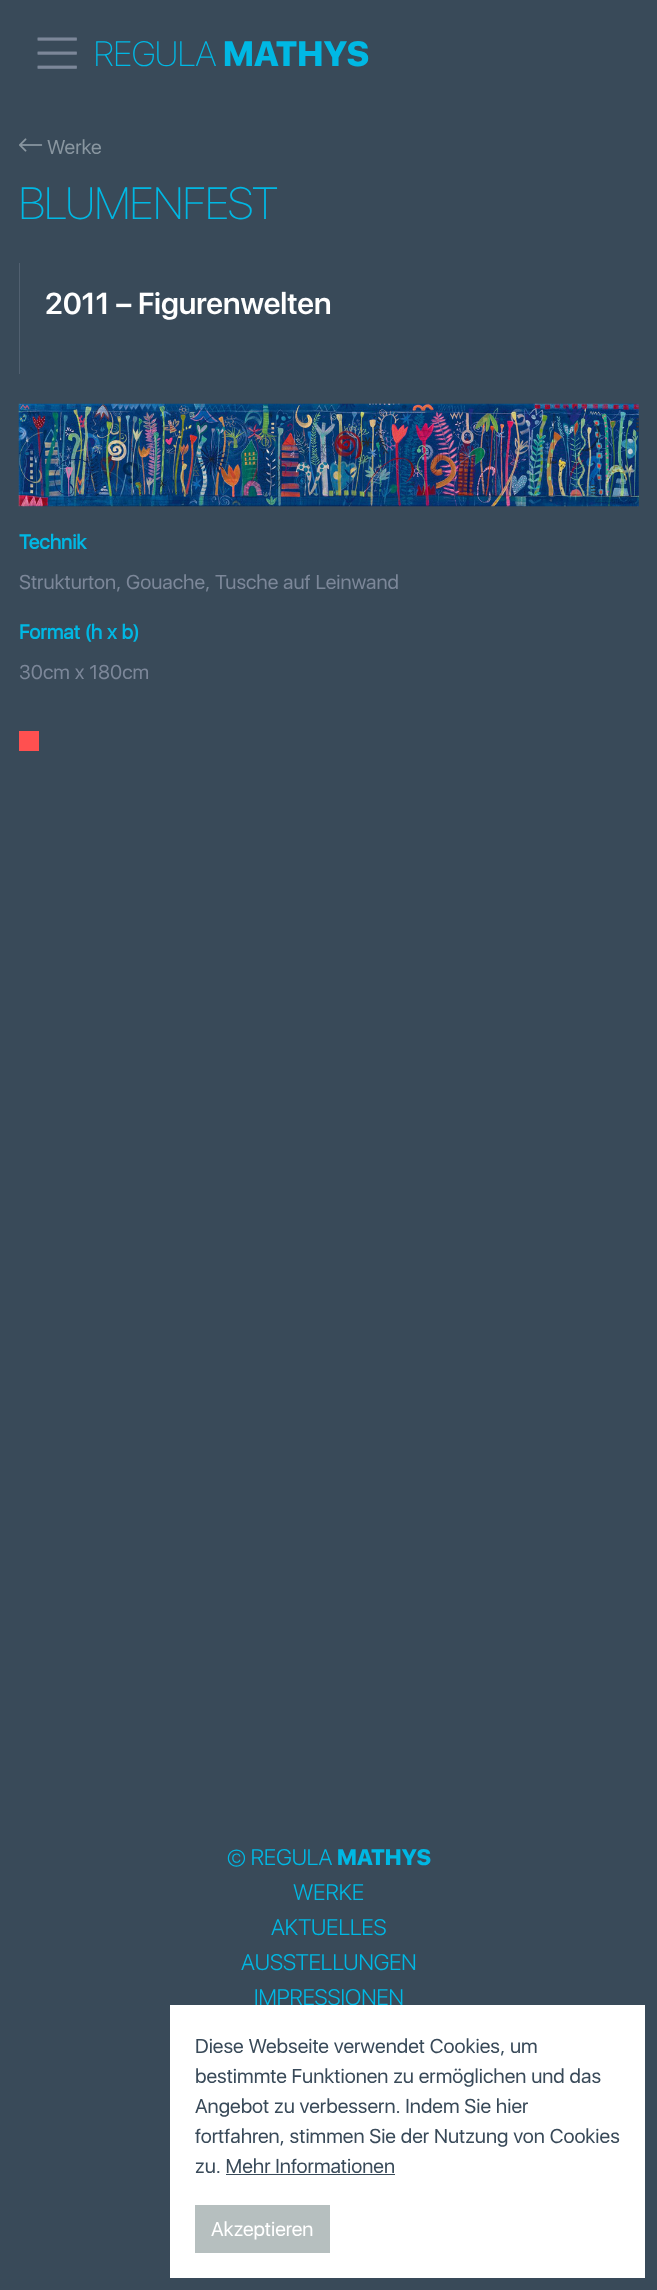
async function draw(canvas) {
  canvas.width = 657;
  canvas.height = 2290;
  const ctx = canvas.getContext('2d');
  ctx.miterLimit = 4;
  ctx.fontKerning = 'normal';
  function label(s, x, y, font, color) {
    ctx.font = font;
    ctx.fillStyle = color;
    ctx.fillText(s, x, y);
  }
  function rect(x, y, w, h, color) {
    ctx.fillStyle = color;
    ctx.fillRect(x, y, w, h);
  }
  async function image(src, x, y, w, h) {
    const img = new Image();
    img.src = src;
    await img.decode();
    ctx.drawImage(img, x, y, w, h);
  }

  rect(0, 0, 657, 2290, '#394a59');
  await image('assets/img1.png', 37, 37, 40, 32);
  label('REGULA', 94, 66, '100 35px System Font', '#00b8e4');
  label('MATHYS', 223, 66, '900 35px System Font', '#00b8e4');
  await image('assets/img2.png', 19, 138, 24, 14);
  label('Werke', 47, 154, '20px System Font', '#8996a0');
  label('BLUMENFEST', 19, 219, '100 45px System Font', '#00b8e4');
  rect(19, 263, 1, 111, '#516070');
  label('2011 – Figurenwelten', 45, 314, '600 30px System Font', '#fff');
  await image('assets/img3.png', 18, 403, 621, 104);
  label('Technik', 19, 549, 'bold 20px System Font', '#00b8e4');
  label('Strukturton, Gouache, Tusche auf Leinwand', 19, 589, '20px System Font', '#7c8799');
  label('Format (h x b)', 19, 639, 'bold 20px System Font', '#00b8e4');
  label('30cm x 180cm', 19, 679, '20px System Font', '#7c8799');
  rect(19, 731, 20, 20, '#ff5050');
  label('© REGULA', 227, 1865, '300 22.5px System Font', '#00b8e4');
  label('MATHYS', 337, 1865, '900 22.5px System Font', '#00b8e4');
  label('WERKE', 293, 1900, '300 22.5px System Font', '#00b8e4');
  label('AKTUELLES', 271, 1935, '300 22.5px System Font', '#00b8e4');
  label('AUSSTELLUNGEN', 241, 1970, '300 22.5px System Font', '#00b8e4');
  label('IMPRESSIONEN', 254, 2005, '300 22.5px System Font', '#00b8e4');
  rect(170, 2005, 475, 273, '#fff');
  label('Diese Webseite verwendet Cookies, um', 195, 2053, '20px System Font', '#394a59');
  label('bestimmte Funktionen zu ermöglichen und das', 195, 2083, '20px System Font', '#394a59');
  label('Angebot zu verbessern. Indem Sie hier', 195, 2113, '20px System Font', '#394a59');
  label('fortfahren, stimmen Sie der Nutzung von Cookies', 195, 2143, '20px System Font', '#394a59');
  label('zu. Mehr Informationen', 195, 2173, '20px System Font', '#394a59');
  rect(226, 2174, 169, 1, '#394a59');
  rect(195, 2205, 135, 48, '#b6bfbf');
  label('Akzeptieren', 211, 2236, '20px System Font', '#fff');
}

draw(document.querySelector('canvas'));
